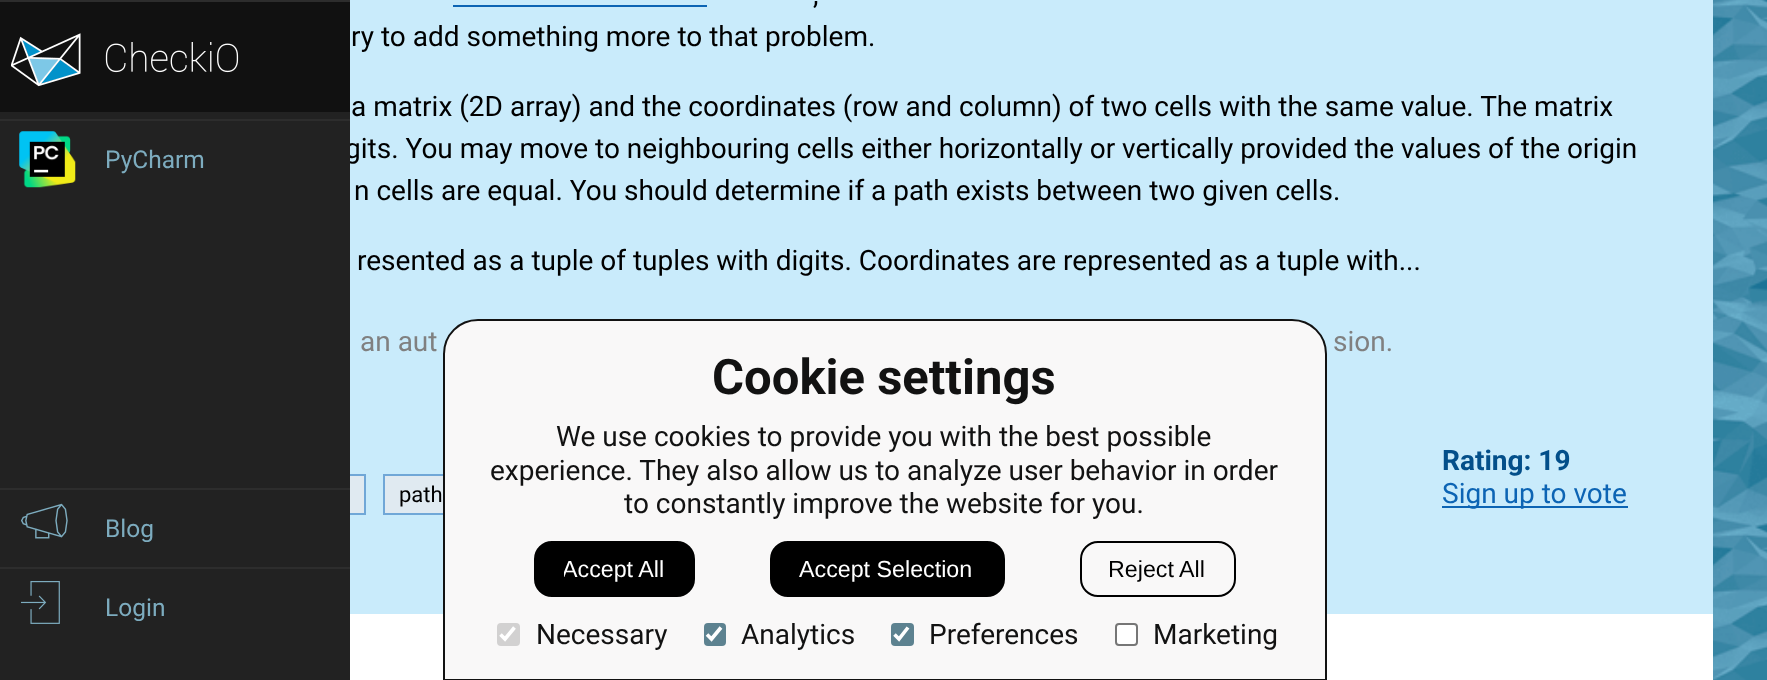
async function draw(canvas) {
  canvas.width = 1767;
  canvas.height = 680;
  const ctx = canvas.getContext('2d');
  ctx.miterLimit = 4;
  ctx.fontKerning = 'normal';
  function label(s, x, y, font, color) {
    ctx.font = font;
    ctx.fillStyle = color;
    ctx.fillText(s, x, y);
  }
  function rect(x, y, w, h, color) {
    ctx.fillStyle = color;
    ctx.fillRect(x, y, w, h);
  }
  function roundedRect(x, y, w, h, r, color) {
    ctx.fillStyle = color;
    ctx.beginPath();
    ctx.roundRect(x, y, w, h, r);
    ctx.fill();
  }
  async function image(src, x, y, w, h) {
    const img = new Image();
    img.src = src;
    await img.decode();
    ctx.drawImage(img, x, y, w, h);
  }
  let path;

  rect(0, 0, 1767, 680, '#fff');
  await image('assets/img1.png', 1713, 0, 54, 680);
  rect(350, 0, 1363, 614, '#c9ebfb');
  label('gits. You may move to neighbouring cells either horizontally or vertically provided the values of the origin', 345, 158, '28px Roboto', '#000');
  rect(350, 476, 14, 37, '#e0eaf1');
  ctx.strokeStyle = '#70a7d7';
  ctx.lineWidth = 2;
  ctx.strokeRect(272, 475, 93, 39);
  rect(0, 112, 350, 568, '#222');
  rect(0, 2, 350, 110, '#111');
  rect(0, 0, 350, 2, '#2d2d2d');
  await image('assets/img2.png', 11, 33, 70, 54);
  await image('assets/img3.png', 105, 42, 134, 31);
  rect(0, 119, 350, 2, '#2d2d2d');
  await image('assets/img4.png', 19, 131, 57, 57);
  label('PyCharm', 105, 168, '24.5px Roboto', '#7dacbf');
  rect(0, 488, 350, 2, '#2d2d2d');
  await image('assets/img5.png', 21, 503, 47, 36);
  label('Blog', 105, 537, '24.5px Roboto', '#7dacbf');
  rect(0, 567, 350, 2, '#2d2d2d');
  await image('assets/img6.png', 21, 581, 39, 43);
  label('Login', 105, 616, '24.5px Roboto', '#7dacbf');
  rect(453, 5, 254, 2, '#0c64b4');
  label(',', 813, 4, '28px Roboto', '#000');
  label('ry to add something more to that problem.', 351, 46, '28px Roboto', '#000');
  label('a matrix (2D array) and the coordinates (row and column) of two cells with the same value. The matrix', 351, 116, '28px Roboto', '#000');
  label('n cells are equal. You should determine if a path exists between two given cells.', 354, 200, '28px Roboto', '#000');
  label('resented as a tuple of tuples with digits. Coordinates are represented as a tuple with...', 357, 270, '28px Roboto', '#000');
  label('an aut', 360, 351, '28px Roboto', '#808080');
  label('sion.', 1333, 351, '28px Roboto', '#808080');
  rect(385, 476, 58, 37, '#e0eaf1');
  ctx.strokeRect(384, 475, 142, 39);
  label('path', 399, 502, '22px Roboto', '#000');
  label('Rating: 19', 1442, 470, 'bold 28px Roboto', '#034f8a');
  rect(1442, 506, 186, 2, '#0c64b4');
  label('Sign up to vote', 1442, 503, '28px Roboto', '#0c64b4');
  ctx.fillStyle = '#f9f8f8';
  path = new Path2D('M478 320H1292C1311 320 1326 335 1326 354V680H444V354C444 335 459 320 478 320Z');
  ctx.fill(path);
  ctx.strokeStyle = '#121212';
  ctx.stroke(path);
  label('Cookie settings', 712, 394, 'bold 49px Roboto', '#121212');
  label('We use cookies to provide you with the best possible', 556, 446, '28px Roboto', '#121212');
  label('experience. They also allow us to analyze user behavior in order', 490, 480, '28px Roboto', '#121212');
  label('to constantly improve the website for you.', 624, 513, '28px Roboto', '#121212');
  ctx.fillStyle = '#000';
  ctx.beginPath();
  ctx.roundRect(535, 542, 159, 54, 17);
  ctx.fill();
  ctx.strokeStyle = '#000';
  ctx.stroke();
  ctx.save();
  ctx.beginPath();
  ctx.rect(564, 557, 101, 26);
  ctx.clip();
  label('Accept All', 562, 577, '23.25px Liberation Sans', '#fff');
  ctx.restore();
  ctx.beginPath();
  ctx.roundRect(771, 542, 233, 54, 17);
  ctx.fill();
  ctx.stroke();
  label('Accept Selection', 799, 577, '23.25px Liberation Sans', '#fff');
  ctx.beginPath();
  ctx.roundRect(1081, 542, 154, 54, 17);
  ctx.stroke();
  ctx.save();
  ctx.beginPath();
  ctx.rect(1110, 557, 96, 26);
  ctx.clip();
  label('Reject All', 1108, 577, '23.25px Liberation Sans', '#000');
  ctx.restore();
  roundedRect(497, 623, 23, 23, 4, '#d2d1d1');
  path = new Path2D('M500.5 634.5L505 639L514.5 627.5');
  ctx.strokeStyle = '#fff';
  ctx.lineWidth = 3.6;
  ctx.stroke(path);
  label('Necessary', 536, 644, '28px Roboto', '#121212');
  roundedRect(704, 623, 22, 23, 4, '#5d8290');
  path = new Path2D('M707 634.5L711.5 639L721 627.5');
  ctx.stroke(path);
  label('Analytics', 741, 644, '28px Roboto', '#121212');
  roundedRect(891, 623, 23, 23, 4, '#5d8290');
  path = new Path2D('M894.5 634.5L899 639L908 627.5');
  ctx.stroke(path);
  label('Preferences', 929, 644, '28px Roboto', '#121212');
  ctx.fillStyle = '#fff';
  ctx.beginPath();
  ctx.roundRect(1116, 624, 21, 21, 3);
  ctx.fill();
  ctx.strokeStyle = '#767676';
  ctx.lineWidth = 2;
  ctx.stroke();
  label('Marketing', 1153, 644, '28px Roboto', '#121212');
}

draw(document.querySelector('canvas'));
